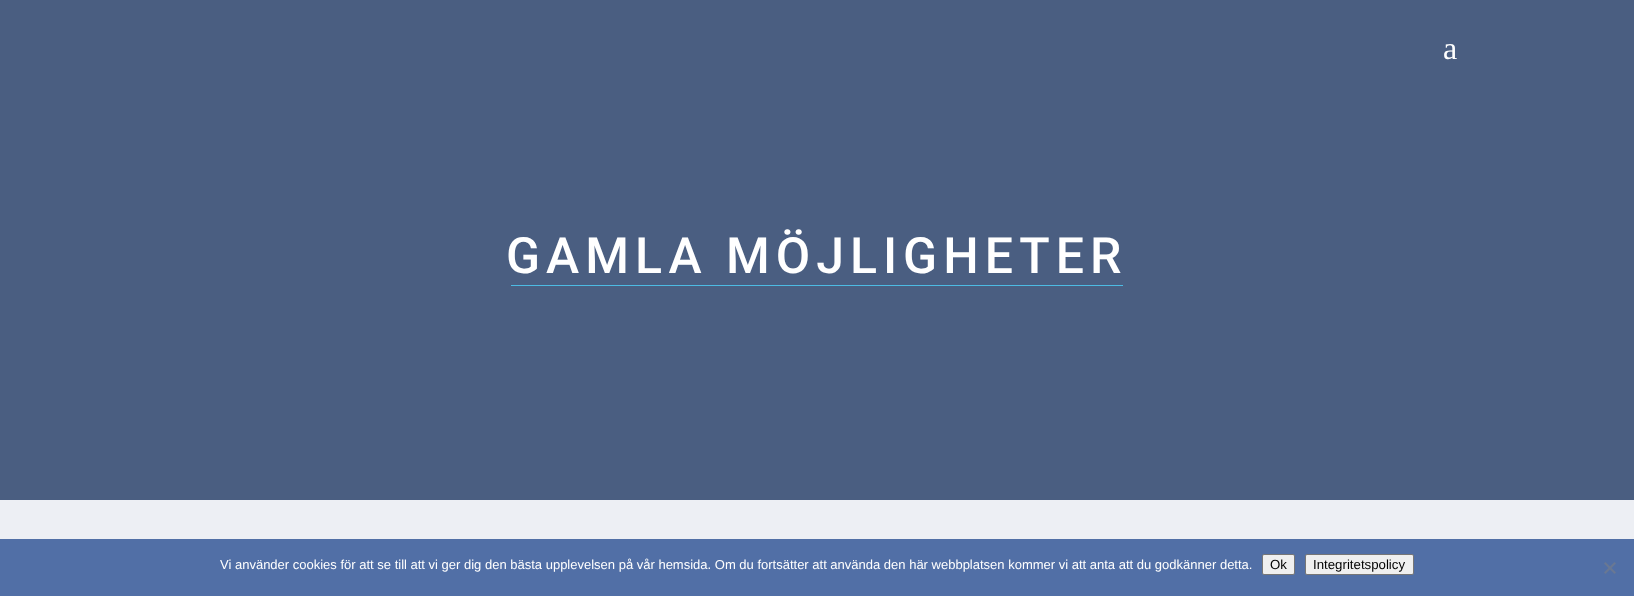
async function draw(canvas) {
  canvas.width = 1634;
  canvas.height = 596;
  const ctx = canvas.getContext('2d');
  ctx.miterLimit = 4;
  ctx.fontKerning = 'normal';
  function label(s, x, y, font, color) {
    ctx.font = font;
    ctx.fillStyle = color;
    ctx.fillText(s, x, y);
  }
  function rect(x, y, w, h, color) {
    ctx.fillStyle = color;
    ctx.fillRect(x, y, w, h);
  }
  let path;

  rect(0, 0, 1634, 596, '#4a5e81');
  label('a', 1443, 59, '32px Liberation Serif', '#fff');
  ctx.letterSpacing = '6px';
  label('GAMLA MÖJLIGHETER', 506, 273, '500 50px Roboto', '#fff');
  rect(511, 285, 612, 1, '#4dbbe3');
  rect(0, 500, 1634, 39, '#edeff4');
  rect(0, 539, 1634, 57, '#516fa6');
  ctx.letterSpacing = '0px';
  label('Vi använder cookies för att se till att vi ger dig den bästa upplevelsen på vår hemsida. Om du fortsätter att använda den här webbplatsen kommer vi att anta att du godkänner detta.', 220, 569, '13px Liberation Sans', '#fff');
  ctx.fillStyle = '#efefef';
  ctx.beginPath();
  ctx.roundRect(1262.5, 554.5, 32, 20, 1.5);
  ctx.fill();
  ctx.strokeStyle = '#767676';
  ctx.stroke();
  label('Ok', 1270, 569, '13.25px Liberation Sans', '#000');
  ctx.fillStyle = '#efefef';
  ctx.beginPath();
  ctx.roundRect(1305.5, 554.5, 108, 20, 1.5);
  ctx.fill();
  ctx.stroke();
  label('Integritetspolicy', 1313, 569, '13.25px Liberation Sans', '#000');
  ctx.fillStyle = '#697893';
  path = new Path2D('M1614.5 562L1616 563.5L1605.5 574L1604 572.5Z');
  ctx.fill(path);
  path = new Path2D('M1604 563.5L1605.5 562L1616 572.5L1614.5 574Z');
  ctx.fill(path);
}

draw(document.querySelector('canvas'));
